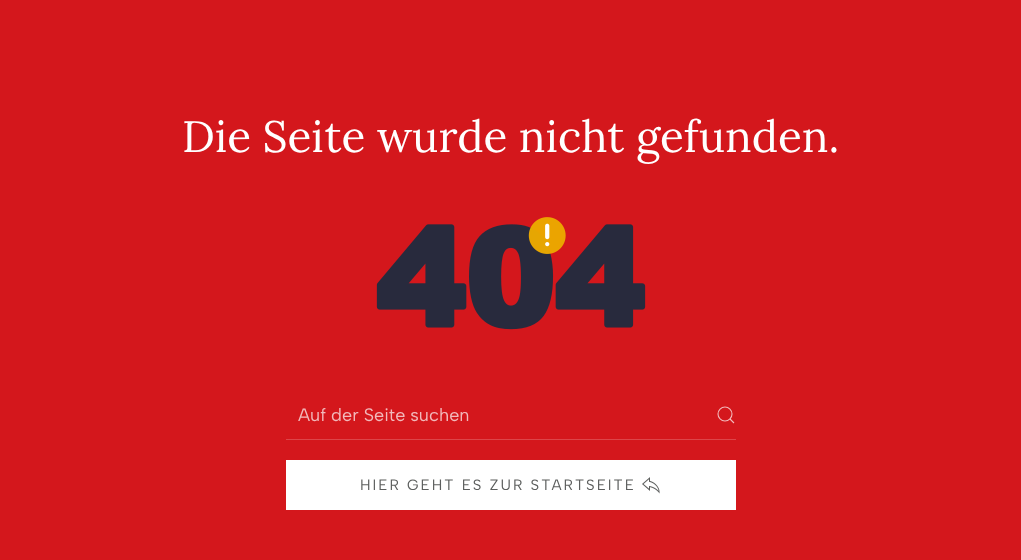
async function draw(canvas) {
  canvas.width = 1021;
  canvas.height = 560;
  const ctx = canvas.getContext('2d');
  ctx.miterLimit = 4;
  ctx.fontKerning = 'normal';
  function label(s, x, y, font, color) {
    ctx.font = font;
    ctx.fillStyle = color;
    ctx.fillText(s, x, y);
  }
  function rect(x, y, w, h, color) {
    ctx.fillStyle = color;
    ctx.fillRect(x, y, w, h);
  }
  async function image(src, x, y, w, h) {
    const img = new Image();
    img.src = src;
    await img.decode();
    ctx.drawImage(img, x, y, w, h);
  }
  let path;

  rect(0, 0, 1021, 560, '#d4171c');
  label('Die Seite wurde nicht gefunden.', 182, 152, '44px Lora', '#fff');
  await image('assets/img1.png', 376, 217, 270, 113);
  rect(286, 439, 450, 1, '#dd4549');
  label('Auf der Seite suchen', 298, 421, '18px Albert Sans', '#f2b9bb');
  ctx.beginPath();
  ctx.arc(725, 414, 7, 0, 2 * Math.PI);
  ctx.strokeStyle = '#f2b9bb';
  ctx.lineWidth = 1.1;
  ctx.stroke();
  path = new Path2D('M730 419L734 423Z');
  ctx.strokeStyle = '#ffffffb3';
  ctx.stroke(path);
  rect(286, 460, 450, 50, '#fff');
  ctx.letterSpacing = '2px';
  label('HIER GEHT ES ZUR STARTSEITE', 360, 490, '15px Albert Sans', '#5c5e5d');
  await image('assets/img2.png', 642, 477, 18, 17);
}

draw(document.querySelector('canvas'));
